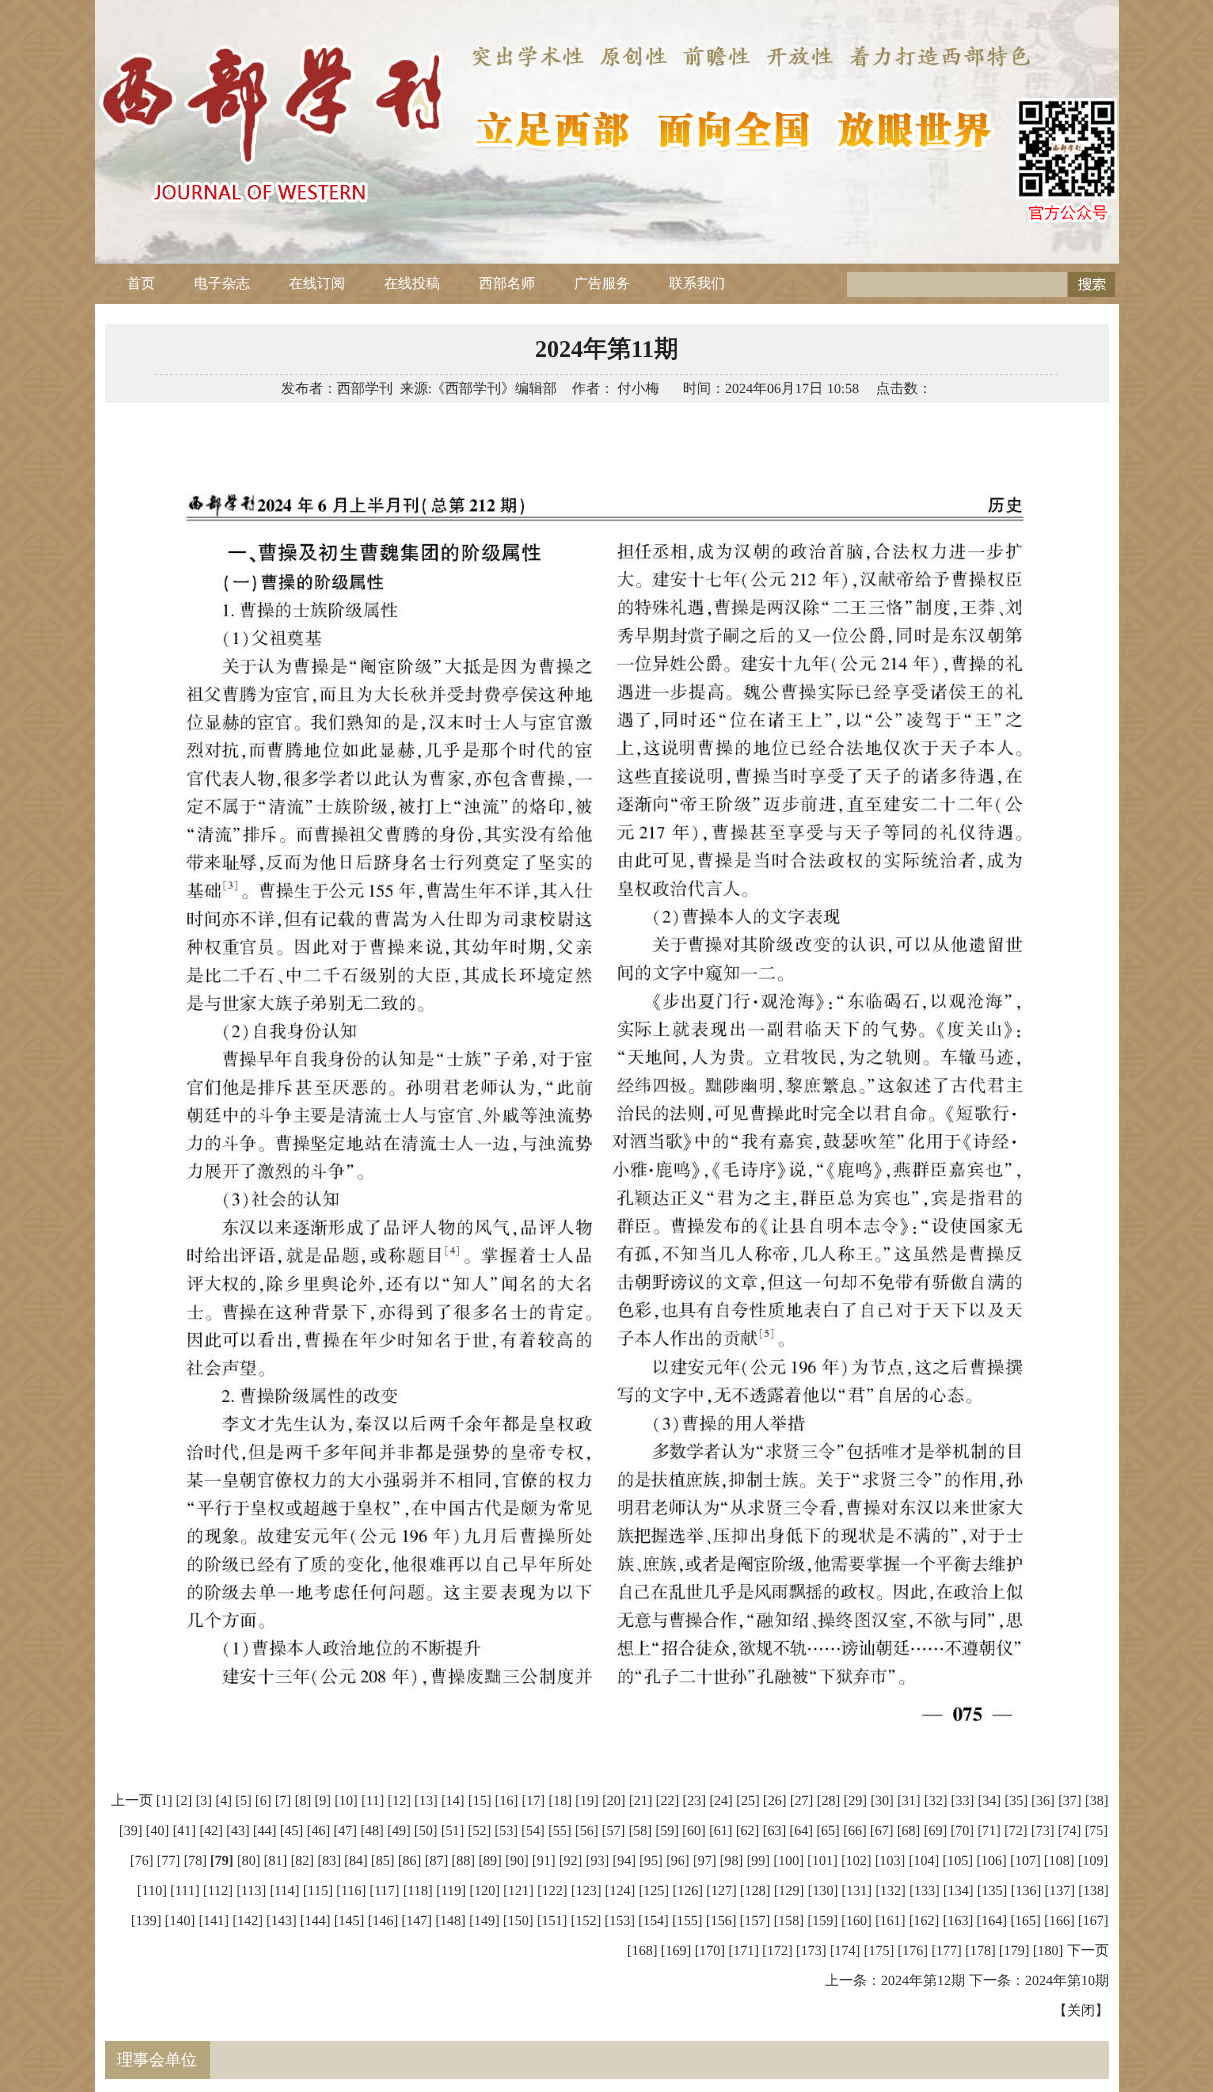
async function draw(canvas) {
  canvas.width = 1213;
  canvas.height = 2092;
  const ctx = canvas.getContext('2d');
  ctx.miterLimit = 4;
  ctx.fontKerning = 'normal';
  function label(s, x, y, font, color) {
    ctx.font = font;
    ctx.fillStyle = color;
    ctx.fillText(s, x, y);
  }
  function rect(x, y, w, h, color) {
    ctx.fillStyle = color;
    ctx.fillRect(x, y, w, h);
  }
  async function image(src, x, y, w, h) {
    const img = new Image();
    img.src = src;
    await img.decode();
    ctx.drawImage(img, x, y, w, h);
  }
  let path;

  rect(0, 0, 1213, 2092, '#fff');
  await image('assets/img1.png', 0, 0, 1213, 2092);
  await image('assets/img2.png', 95, 0, 1024, 264);
  label('首页', 127, 288, '500 14px WenQuanYi Zen Hei', '#fff');
  label('电子杂志', 194, 288, '500 14px WenQuanYi Zen Hei', '#fff');
  label('在线订阅', 289, 288, '500 14px WenQuanYi Zen Hei', '#fff');
  label('在线投稿', 384, 288, '500 14px WenQuanYi Zen Hei', '#fff');
  label('西部名师', 479, 288, '500 14px WenQuanYi Zen Hei', '#fff');
  label('广告服务', 574, 288, '500 14px WenQuanYi Zen Hei', '#fff');
  label('联系我们', 669, 288, '500 14px WenQuanYi Zen Hei', '#fff');
  rect(847, 272, 220, 25, '#cabfa3');
  await image('assets/img3.png', 1068, 272, 47, 25);
  rect(95, 304, 1024, 1788, '#fff');
  rect(105, 324, 1004, 79, '#f0f0f0');
  path = new Path2D('M155 374.5H1058');
  ctx.strokeStyle = '#ccc';
  ctx.setLineDash([3, 2]);
  ctx.stroke(path);
  label('2024', 535, 357, 'bold 24px Liberation Serif', '#1f1f1f');
  label('年第', 583, 357, 'bold 24px WenQuanYi Zen Hei', '#1f1f1f');
  label('11', 631, 357, 'bold 24px Liberation Serif', '#1f1f1f');
  label('期', 654, 357, 'bold 24px WenQuanYi Zen Hei', '#1f1f1f');
  label('发布者：西部学刊', 281, 393, '500 14px WenQuanYi Zen Hei', '#303030');
  label('来源', 400, 393, '500 14px WenQuanYi Zen Hei', '#303030');
  label(':', 428, 393, '14px Liberation Serif', '#303030');
  label('《西部学刊》编辑部', 431, 393, '500 14px WenQuanYi Zen Hei', '#303030');
  ctx.wordSpacing = '-1px';
  label('作者： 付小梅', 572, 393, '500 14px WenQuanYi Zen Hei', '#303030');
  ctx.wordSpacing = '0px';
  label('时间：', 683, 393, '500 14px WenQuanYi Zen Hei', '#303030');
  label('2024', 725, 393, '14px Liberation Serif', '#303030');
  label('年', 753, 393, '500 14px WenQuanYi Zen Hei', '#303030');
  label('06', 767, 393, '14px Liberation Serif', '#303030');
  label('月', 781, 393, '500 14px WenQuanYi Zen Hei', '#303030');
  label('17', 795, 393, '14px Liberation Serif', '#303030');
  label('日', 809, 393, '500 14px WenQuanYi Zen Hei', '#303030');
  label('10:58', 827, 393, '14px Liberation Serif', '#303030');
  label('点击数：', 876, 393, '500 14px WenQuanYi Zen Hei', '#303030');
  await image('assets/img4.png', 181, 493, 843, 1229);
  label('上一页', 111, 1805, '500 14px WenQuanYi Zen Hei', '#303030');
  label('[1] [2] [3] [4] [5] [6] [7] [8] [9] [10] [11] [12] [13] [14] [15] [16] [17] [18] [19] [20] [21] [22] [23] [24] [25] [26] [27] [28] [29] [30] [31] [32] [33] [34] [35] [36] [37] [38]', 156, 1805, '14px Liberation Serif', '#303030');
  label('[39] [40] [41] [42] [43] [44] [45] [46] [47] [48] [49] [50] [51] [52] [53] [54] [55] [56] [57] [58] [59] [60] [61] [62] [63] [64] [65] [66] [67] [68] [69] [70] [71] [72] [73] [74] [75]', 119, 1835, '14px Liberation Serif', '#303030');
  label('[76] [77] [78]', 130, 1865, '14px Liberation Serif', '#303030');
  label('[79]', 210, 1865, 'bold 14px Liberation Serif', '#303030');
  label('[80] [81] [82] [83] [84] [85] [86] [87] [88] [89] [90] [91] [92] [93] [94] [95] [96] [97] [98] [99] [100] [101] [102] [103] [104] [105] [106] [107] [108] [109]', 237, 1865, '14px Liberation Serif', '#303030');
  label('[110] [111] [112] [113] [114] [115] [116] [117] [118] [119] [120] [121] [122] [123] [124] [125] [126] [127] [128] [129] [130] [131] [132] [133] [134] [135] [136] [137] [138]', 137, 1895, '14px Liberation Serif', '#303030');
  label('[139] [140] [141] [142] [143] [144] [145] [146] [147] [148] [149] [150] [151] [152] [153] [154] [155] [156] [157] [158] [159] [160] [161] [162] [163] [164] [165] [166] [167]', 131, 1925, '14px Liberation Serif', '#303030');
  label('[168] [169] [170] [171] [172] [173] [174] [175] [176] [177] [178] [179] [180]', 627, 1955, '14px Liberation Serif', '#303030');
  label('下一页', 1067, 1955, '500 14px WenQuanYi Zen Hei', '#303030');
  label('上一条：', 825, 1985, '500 14px WenQuanYi Zen Hei', '#303030');
  label('2024', 881, 1985, '14px Liberation Serif', '#303030');
  label('年第', 909, 1985, '500 14px WenQuanYi Zen Hei', '#303030');
  label('12', 937, 1985, '14px Liberation Serif', '#303030');
  label('期', 951, 1985, '500 14px WenQuanYi Zen Hei', '#303030');
  label('下一条：', 969, 1985, '500 14px WenQuanYi Zen Hei', '#303030');
  label('2024', 1025, 1985, '14px Liberation Serif', '#303030');
  label('年第', 1053, 1985, '500 14px WenQuanYi Zen Hei', '#303030');
  label('10', 1081, 1985, '14px Liberation Serif', '#303030');
  label('期', 1095, 1985, '500 14px WenQuanYi Zen Hei', '#303030');
  label('【关闭】', 1053, 2015, '500 14px WenQuanYi Zen Hei', '#303030');
  rect(210, 2041, 899, 38, '#d8d1bf');
  rect(105, 2041, 105, 38, '#b6a67d');
  label('理事会单位', 117, 2065, '500 16px WenQuanYi Zen Hei', '#fff');
}

draw(document.querySelector('canvas'));
